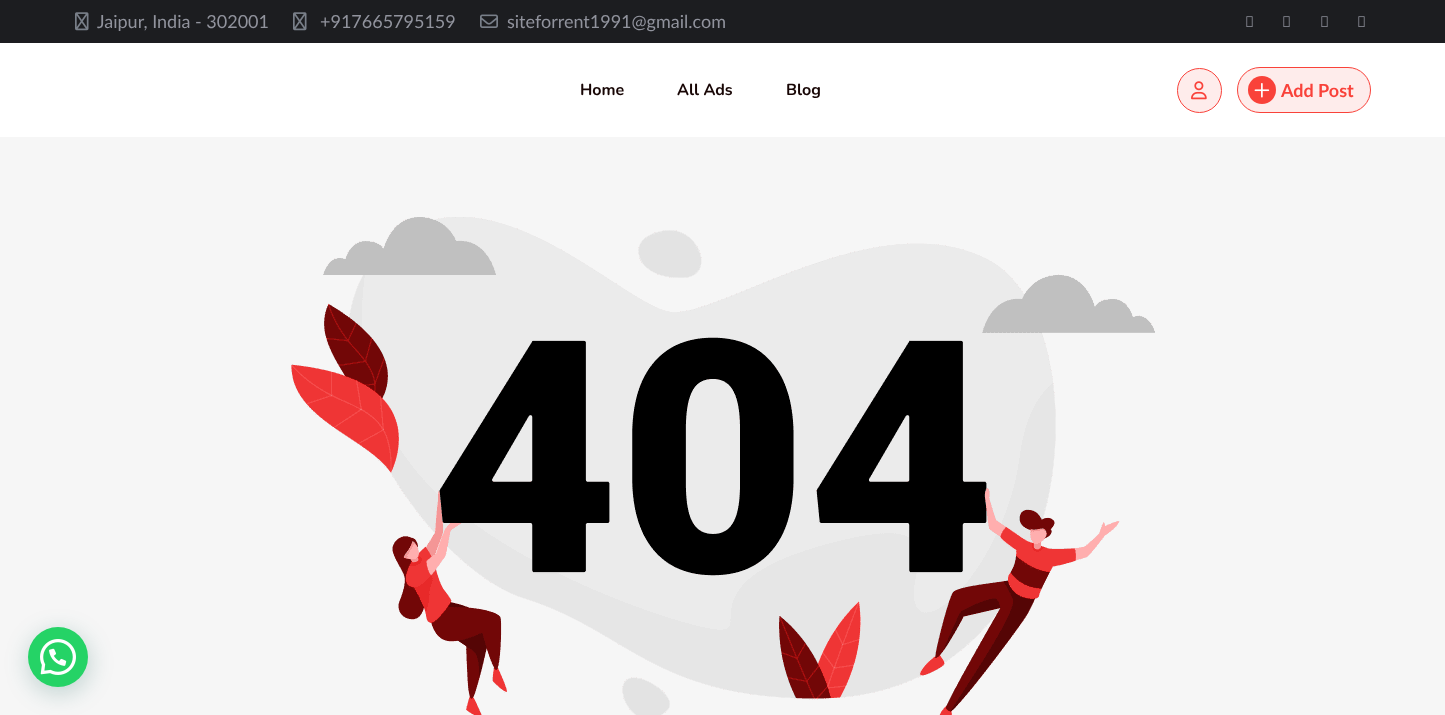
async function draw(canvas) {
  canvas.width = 1445;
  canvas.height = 715;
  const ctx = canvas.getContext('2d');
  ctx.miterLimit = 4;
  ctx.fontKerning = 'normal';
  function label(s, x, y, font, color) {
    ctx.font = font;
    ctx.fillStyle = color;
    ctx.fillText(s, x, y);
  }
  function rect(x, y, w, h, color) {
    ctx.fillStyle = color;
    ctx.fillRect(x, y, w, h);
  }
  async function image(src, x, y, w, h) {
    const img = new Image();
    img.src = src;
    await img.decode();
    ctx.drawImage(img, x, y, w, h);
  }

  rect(0, 0, 1445, 715, '#f6f6f6');
  rect(0, 0, 1445, 43, '#1c1d20');
  await image('assets/img1.png', 75, 12, 14, 19);
  label('Jaipur, India - 302001', 97, 28, '18px Lato', '#91939d');
  await image('assets/img1.png', 293, 12, 14, 19);
  label('+917665795159', 320, 28, '18px Lato', '#91939d');
  await image('assets/img2.png', 480, 14, 18, 14);
  label('siteforrent1991@gmail.com', 507, 28, '18px Lato', '#91939d');
  await image('assets/img3.png', 1246, 16, 7, 11);
  await image('assets/img3.png', 1283, 16, 7, 11);
  await image('assets/img3.png', 1321, 16, 7, 11);
  await image('assets/img3.png', 1358, 16, 7, 11);
  rect(0, 43, 1445, 94, '#fff');
  label('Home', 580, 95, 'bold 16px Nunito', '#180605');
  label('All Ads', 677, 95, 'bold 16px Nunito', '#180605');
  label('Blog', 786, 95, 'bold 16px Nunito', '#180605');
  ctx.fillStyle = '#feeceb';
  ctx.beginPath();
  ctx.arc(1199.5, 90.5, 22, 0, 2 * Math.PI);
  ctx.fill();
  ctx.strokeStyle = '#f9423a';
  ctx.stroke();
  await image('assets/img4.png', 1191, 81, 16, 19);
  ctx.beginPath();
  ctx.roundRect(1237.5, 67.5, 133, 45, 22.5);
  ctx.fill();
  ctx.stroke();
  ctx.fillStyle = '#f9423a';
  ctx.beginPath();
  ctx.arc(1262, 90, 14, 0, 2 * Math.PI);
  ctx.fill();
  await image('assets/img5.png', 1254, 83, 16, 15);
  label('Add Post', 1281, 97, 'bold 18px Lato', '#f9423a');
  await image('assets/img6.png', 291, 217, 864, 498);
  ctx.fillStyle = '#075e543d';
  ctx.filter = 'blur(12px)';
  ctx.beginPath();
  ctx.roundRect(29, 633, 60, 60, 30);
  ctx.fill();
  ctx.filter = 'none';
  ctx.fillStyle = '#25d366';
  ctx.beginPath();
  ctx.arc(58, 657, 30, 0, 2 * Math.PI);
  ctx.fill();
  await image('assets/img7.png', 40, 639, 36, 36);
}

draw(document.querySelector('canvas'));
